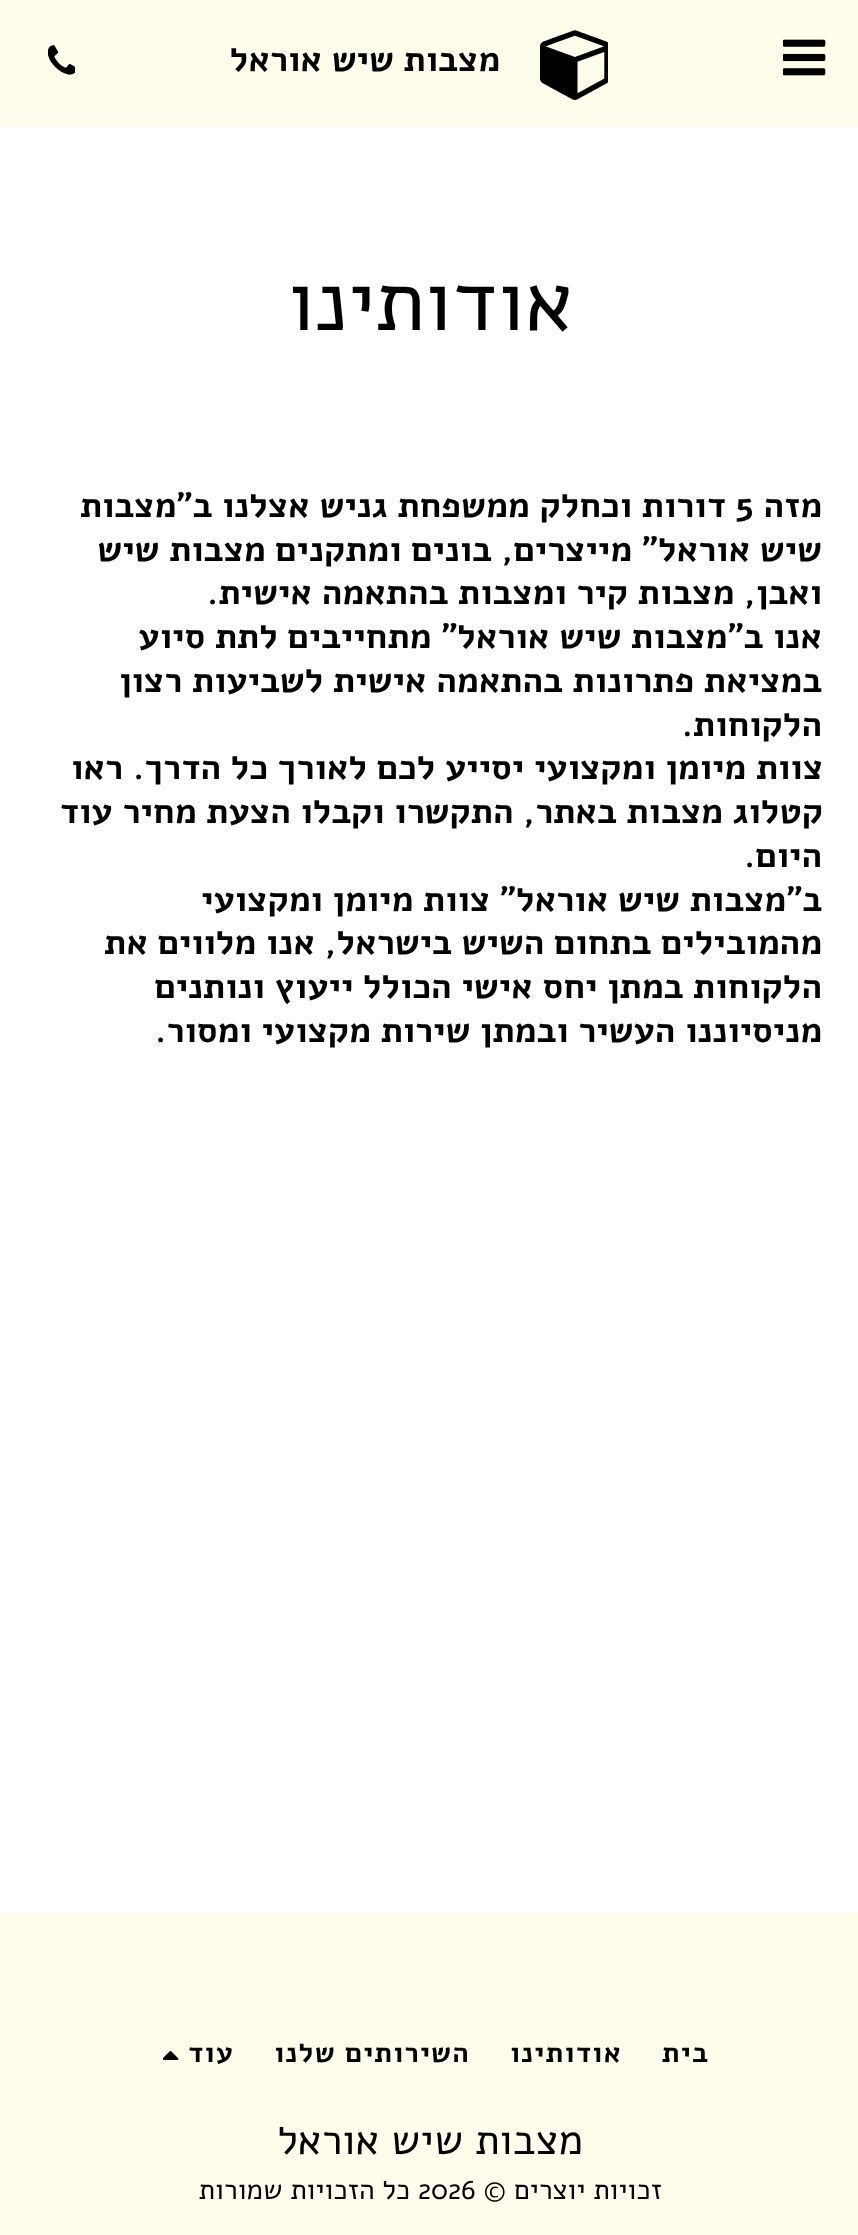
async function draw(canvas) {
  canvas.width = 858;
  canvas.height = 2235;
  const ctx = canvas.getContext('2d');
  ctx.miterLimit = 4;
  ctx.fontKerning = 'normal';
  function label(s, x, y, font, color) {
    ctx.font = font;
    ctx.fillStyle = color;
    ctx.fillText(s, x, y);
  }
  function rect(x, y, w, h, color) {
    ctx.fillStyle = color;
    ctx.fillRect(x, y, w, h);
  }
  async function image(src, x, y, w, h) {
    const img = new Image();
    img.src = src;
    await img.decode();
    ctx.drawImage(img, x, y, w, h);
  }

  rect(0, 0, 858, 2235, '#fffeec');
  await image('assets/img1.png', 783, 39, 43, 37);
  await image('assets/img2.png', 540, 30, 68, 70);
  ctx.direction = 'rtl';
  label('מצבות שיש אוראל', 500, 71, 'bold 35px Alef', '#000');
  await image('assets/img3.png', 48, 45, 27, 30);
  rect(0, 126, 858, 1787, '#fff');
  label('אודותינו', 573, 330, '85.5px Alef', '#000');
  label('מזה', 822, 517, 'bold 35px Alef', '#000');
  ctx.direction = 'ltr';
  label('5', 735, 517, 'bold 35px Alef', '#000');
  ctx.direction = 'rtl';
  label('דורות וכחלק ממשפחת גניש אצלנו ב"מצבות', 726, 517, 'bold 35px Alef', '#000');
  label('שיש אוראל" מייצרים, בונים ומתקנים מצבות שיש', 822, 561, 'bold 35px Alef', '#000');
  label('ואבן, מצבות קיר ומצבות בהתאמה אישית.', 822, 604, 'bold 35px Alef', '#000');
  label('אנו ב"מצבות שיש אוראל" מתחייבים לתת סיוע', 822, 648, 'bold 35px Alef', '#000');
  label('במציאת פתרונות בהתאמה אישית לשביעות רצון', 822, 692, 'bold 35px Alef', '#000');
  label('הלקוחות.', 822, 736, 'bold 35px Alef', '#000');
  label('צוות מיומן ומקצועי יסייע לכם לאורך כל הדרך. ראו', 823, 779, 'bold 35px Alef', '#000');
  label('קטלוג מצבות באתר, התקשרו וקבלו הצעת מחיר עוד', 823, 823, 'bold 35px Alef', '#000');
  label('היום.', 822, 867, 'bold 35px Alef', '#000');
  label('ב"מצבות שיש אוראל" צוות מיומן ומקצועי', 822, 911, 'bold 35px Alef', '#000');
  label('מהמובילים בתחום השיש בישראל, אנו מלווים את', 822, 954, 'bold 35px Alef', '#000');
  label('הלקוחות במתן יחס אישי הכולל ייעוץ ונותנים', 822, 998, 'bold 35px Alef', '#000');
  label('מניסיוננו העשיר ובמתן שירות מקצועי ומסור.', 822, 1042, 'bold 35px Alef', '#000');
  ctx.letterSpacing = '1.25px';
  label('בית', 709, 2062, 'bold 28px Alef', '#000');
  label('אודותינו', 622, 2062, 'bold 28px Alef', '#000');
  label('השירותים שלנו', 470, 2062, 'bold 28px Alef', '#000');
  label('עוד', 234, 2062, 'bold 28px Alef', '#000');
  await image('assets/img4.png', 163, 2051, 16, 9);
  ctx.letterSpacing = '0px';
  label('מצבות שיש אוראל', 583, 2154, '42px Alef', '#000');
  label('זכויות יוצרים ©', 662, 2199, '28px Alef', '#000');
  ctx.direction = 'ltr';
  label('2026', 418, 2199, '28px Alef', '#000');
  ctx.direction = 'rtl';
  label('כל הזכויות שמורות', 410, 2199, '28px Alef', '#000');
}

draw(document.querySelector('canvas'));
